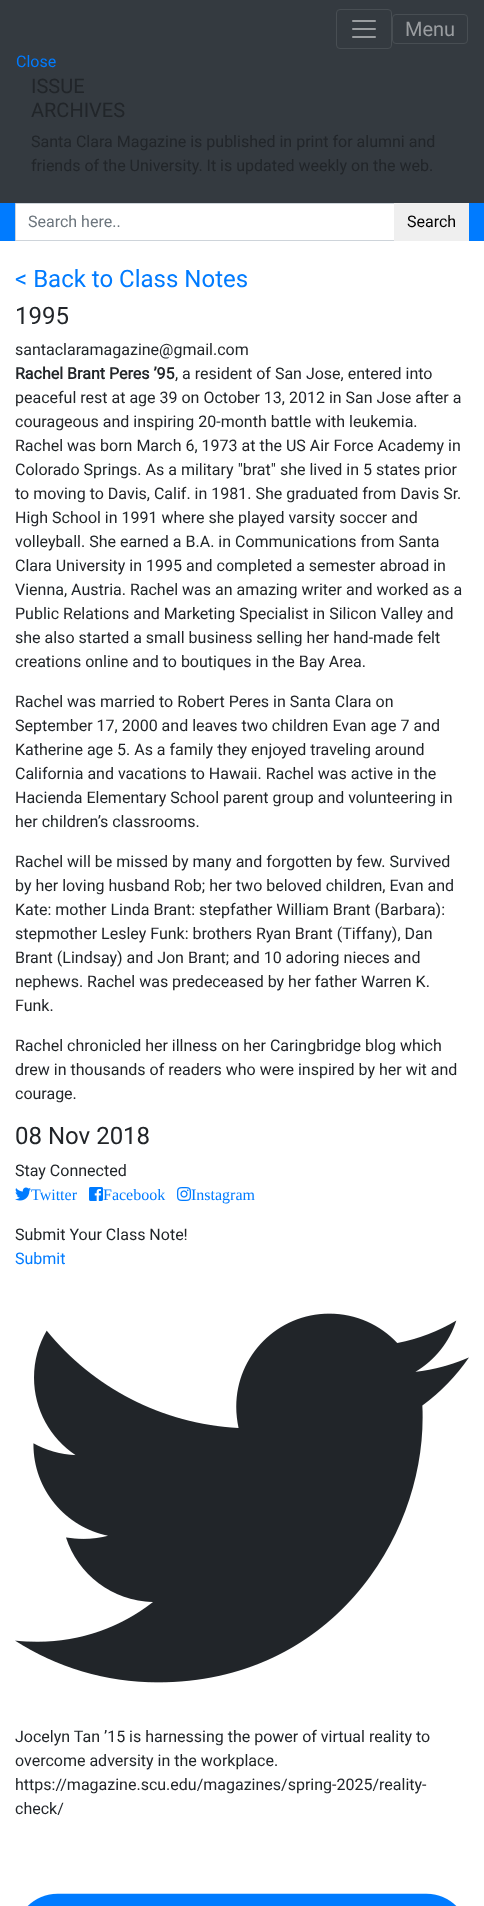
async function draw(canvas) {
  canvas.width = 484;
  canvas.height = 1906;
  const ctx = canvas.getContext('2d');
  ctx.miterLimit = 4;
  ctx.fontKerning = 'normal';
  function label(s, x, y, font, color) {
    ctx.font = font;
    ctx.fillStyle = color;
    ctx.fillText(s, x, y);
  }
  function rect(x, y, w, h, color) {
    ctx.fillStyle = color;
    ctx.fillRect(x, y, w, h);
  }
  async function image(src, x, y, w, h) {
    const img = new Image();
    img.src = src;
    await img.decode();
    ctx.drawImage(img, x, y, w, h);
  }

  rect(0, 0, 484, 1906, '#fff');
  rect(0, 0, 484, 203, '#343a40');
  ctx.beginPath();
  ctx.roundRect(336.5, 9.5, 55, 39, 3.5);
  ctx.strokeStyle = '#484e53';
  ctx.stroke();
  await image('assets/img1.png', 352, 20, 24, 18);
  ctx.beginPath();
  ctx.roundRect(392.5, 14.5, 75, 29, 3.5);
  ctx.stroke();
  label('Menu', 405, 36, '20px Roboto', '#9a9da0');
  label('Close', 16, 67, '16px Roboto', '#007bff');
  label('ISSUE', 31, 93, '20px Roboto', '#212529');
  label('ARCHIVES', 31, 117, '20px Roboto', '#212529');
  label('Santa Clara Magazine is published in print for alumni and', 31, 147, '16px Roboto', '#212529');
  label('friends of the University. It is updated weekly on the web.', 31, 171, '16px Roboto', '#212529');
  rect(0, 203, 484, 38, '#007bff');
  ctx.fillStyle = '#fff';
  ctx.beginPath();
  ctx.rect(15.5, 203.5, 379, 37);
  ctx.fill();
  ctx.strokeStyle = '#ced4da';
  ctx.stroke();
  label('Search here..', 28, 227, '16px Roboto', '#6c757d');
  rect(394, 203, 75, 38, '#efefef');
  label('Search', 407, 227, '16px Roboto', '#000');
  label('< Back to Class Notes', 15, 287, '24px Roboto', '#007bff');
  label('1995', 15, 324, '24px Roboto', '#212529');
  label('santaclaramagazine@gmail.com', 15, 355, '16px Roboto', '#212529');
  label('Rachel Brant Peres ’95', 15, 379, 'bold 16px Roboto', '#212529');
  label(', a resident of San Jose, entered into', 175, 379, '16px Roboto', '#212529');
  label('peaceful rest at age 39 on October 13, 2012 in San Jose after a', 15, 403, '16px Roboto', '#212529');
  label('courageous and inspiring 20-month battle with leukemia.', 15, 427, '16px Roboto', '#212529');
  label('Rachel was born March 6, 1973 at the US Air Force Academy in', 15, 451, '16px Roboto', '#212529');
  label('Colorado Springs. As a military "brat" she lived in 5 states prior', 15, 475, '16px Roboto', '#212529');
  label('to moving to Davis, Calif. in 1981. She graduated from Davis Sr.', 15, 499, '16px Roboto', '#212529');
  label('High School in 1991 where she played varsity soccer and', 15, 523, '16px Roboto', '#212529');
  label('volleyball. She earned a B.A. in Communications from Santa', 15, 547, '16px Roboto', '#212529');
  label('Clara University in 1995 and completed a semester abroad in', 15, 571, '16px Roboto', '#212529');
  label('Vienna, Austria. Rachel was an amazing writer and worked as a', 15, 595, '16px Roboto', '#212529');
  label('Public Relations and Marketing Specialist in Silicon Valley and', 15, 619, '16px Roboto', '#212529');
  label('she also started a small business selling her hand-made felt', 15, 643, '16px Roboto', '#212529');
  label('creations online and to boutiques in the Bay Area.', 15, 667, '16px Roboto', '#212529');
  label('Rachel was married to Robert Peres in Santa Clara on', 15, 707, '16px Roboto', '#212529');
  label('September 17, 2000 and leaves two children Evan age 7 and', 15, 731, '16px Roboto', '#212529');
  label('Katherine age 5. As a family they enjoyed traveling around', 15, 755, '16px Roboto', '#212529');
  label('California and vacations to Hawaii. Rachel was active in the', 15, 779, '16px Roboto', '#212529');
  label('Hacienda Elementary School parent group and volunteering in', 15, 803, '16px Roboto', '#212529');
  label('her children’s classrooms.', 15, 827, '16px Roboto', '#212529');
  label('Rachel will be missed by many and forgotten by few. Survived', 15, 867, '16px Roboto', '#212529');
  label('by her loving husband Rob; her two beloved children, Evan and', 15, 891, '16px Roboto', '#212529');
  label('Kate: mother Linda Brant: stepfather William Brant (Barbara):', 15, 915, '16px Roboto', '#212529');
  label('stepmother Lesley Funk: brothers Ryan Brant (Tiffany), Dan', 15, 939, '16px Roboto', '#212529');
  label('Brant (Lindsay) and Jon Brant; and 10 adoring nieces and', 15, 963, '16px Roboto', '#212529');
  label('nephews. Rachel was predeceased by her father Warren K.', 15, 987, '16px Roboto', '#212529');
  label('Funk.', 15, 1011, '16px Roboto', '#212529');
  label('Rachel chronicled her illness on her Caringbridge blog which', 15, 1051, '16px Roboto', '#212529');
  label('drew in thousands of readers who were inspired by her wit and', 15, 1075, '16px Roboto', '#212529');
  label('courage.', 15, 1099, '16px Roboto', '#212529');
  label('08 Nov 2018', 15, 1144, '24px Roboto', '#212529');
  label('Stay Connected', 15, 1176, '16px Roboto', '#212529');
  await image('assets/img2.png', 15, 1187, 16, 14);
  label('Twitter', 31, 1200, '16px Liberation Serif', '#007bff');
  await image('assets/img3.png', 89, 1187, 14, 14);
  label('Facebook', 103, 1200, '16px Liberation Serif', '#007bff');
  await image('assets/img4.png', 177, 1187, 14, 14);
  label('Instagram', 191, 1200, '16px Liberation Serif', '#007bff');
  label('Submit Your Class Note!', 15, 1240, '16px Roboto', '#212529');
  label('Submit', 15, 1264, '16px Roboto', '#007bff');
  await image('assets/img5.png', 15, 1313, 454, 370);
  label('Jocelyn Tan ’15 is harnessing the power of virtual reality to', 15, 1742, '16px Roboto', '#212529');
  label('overcome adversity in the workplace.', 15, 1766, '16px Roboto', '#212529');
  label('https://magazine.scu.edu/magazines/spring-2025/reality-', 15, 1790, '16px Roboto', '#212529');
  label('check/', 15, 1814, '16px Roboto', '#212529');
  await image('assets/img6.png', 27, 1893, 430, 13);
}

draw(document.querySelector('canvas'));
